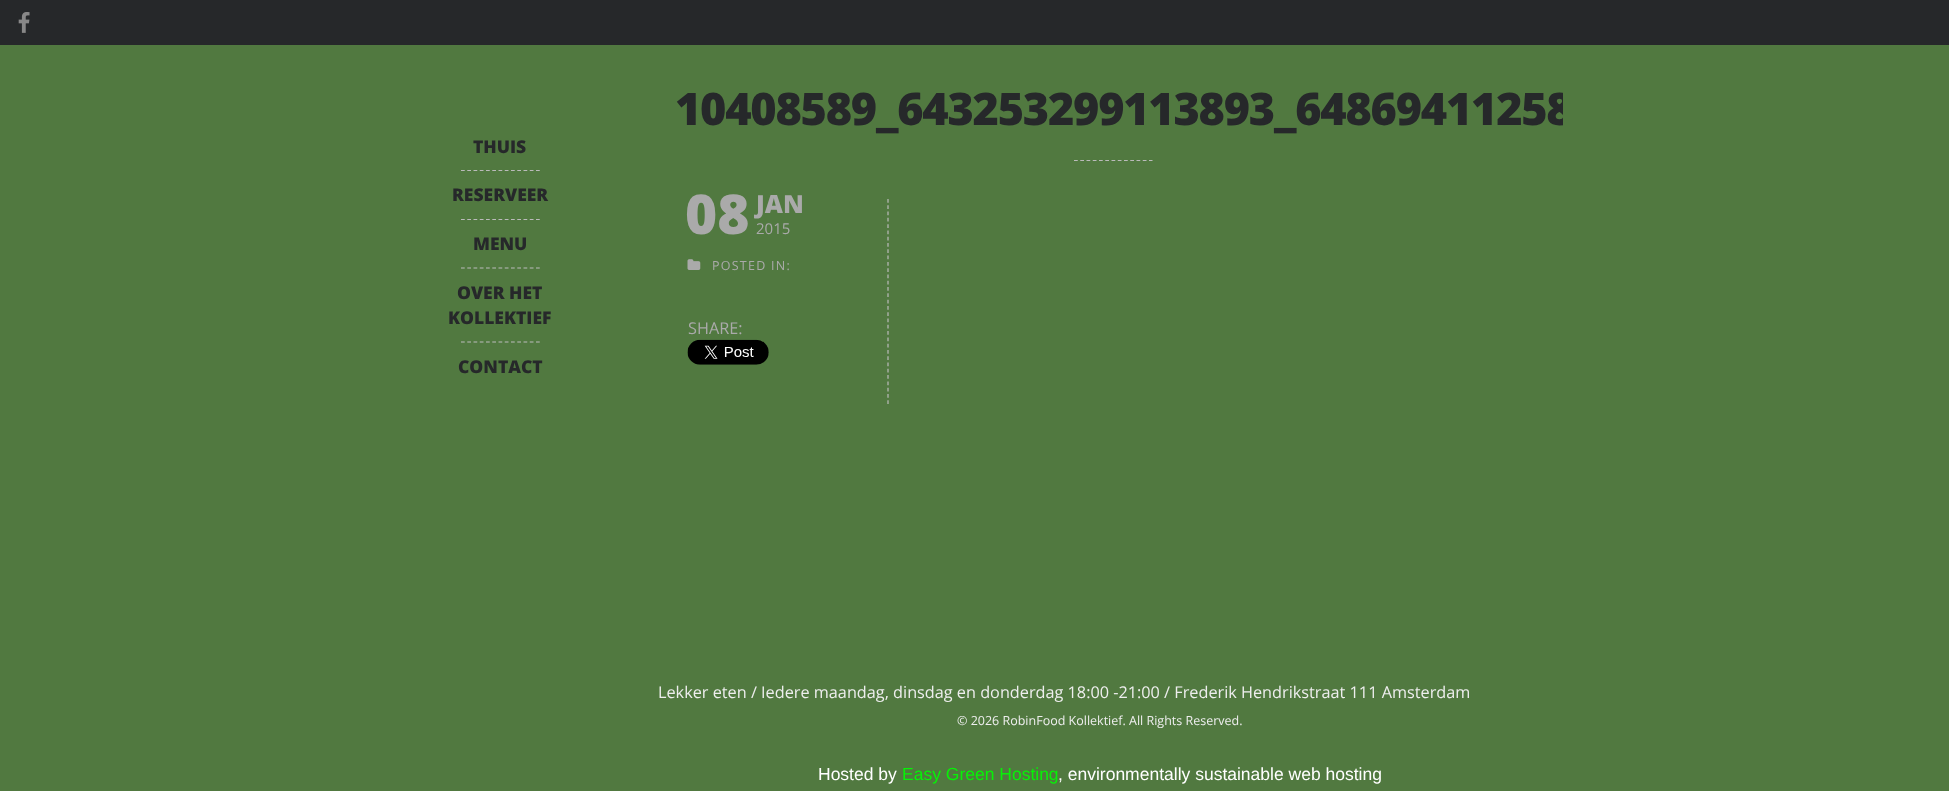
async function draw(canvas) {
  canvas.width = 1949;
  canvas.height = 791;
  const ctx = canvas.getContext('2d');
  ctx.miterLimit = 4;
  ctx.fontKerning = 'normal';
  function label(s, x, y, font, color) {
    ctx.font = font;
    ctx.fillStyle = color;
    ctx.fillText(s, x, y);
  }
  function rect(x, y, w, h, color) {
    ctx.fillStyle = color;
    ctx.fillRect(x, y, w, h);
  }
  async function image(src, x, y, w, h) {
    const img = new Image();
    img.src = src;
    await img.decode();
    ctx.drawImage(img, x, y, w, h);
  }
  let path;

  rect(0, 0, 1949, 791, '#517940');
  rect(0, 0, 1949, 45, '#26282a');
  await image('assets/img1.png', 18, 12, 12, 21);
  label('THUIS', 473, 153, '800 17.5px Open Sans', '#26282a');
  path = new Path2D('M461 170.5H540');
  ctx.strokeStyle = '#bbb';
  ctx.lineWidth = 1.2;
  ctx.setLineDash([3.75, 2.5]);
  ctx.stroke(path);
  label('RESERVEER', 452, 201, '800 17.5px Open Sans', '#26282a');
  path = new Path2D('M461 219.5H540');
  ctx.stroke(path);
  label('MENU', 473, 250, '800 17.5px Open Sans', '#26282a');
  path = new Path2D('M461 268H540');
  ctx.stroke(path);
  label('OVER HET', 457, 299, '800 17.5px Open Sans', '#26282a');
  label('KOLLEKTIEF', 448, 324, '800 17.5px Open Sans', '#26282a');
  path = new Path2D('M461 342H540');
  ctx.stroke(path);
  label('CONTACT', 458, 373, '800 17.5px Open Sans', '#26282a');
  ctx.save();
  ctx.beginPath();
  ctx.rect(638, 56, 925, 585);
  ctx.clip();
  ctx.letterSpacing = '-1.25px';
  label('10408589_643253299113893_64869411258', 675, 125, '800 45px Open Sans', '#26282a');
  ctx.restore();
  path = new Path2D('M1074 160.5H1152.5');
  ctx.stroke(path);
  path = new Path2D('M888 199V404');
  ctx.setLineDash([3.75, 2.54]);
  ctx.stroke(path);
  label('08', 685, 234, '800 55px Open Sans', '#aaa');
  label('JAN', 756, 213, '800 25px Open Sans', '#aaa');
  label('2015', 756, 234, '15px Open Sans', '#aaa');
  await image('assets/img2.png', 687, 259, 14, 11);
  ctx.letterSpacing = '1.25px';
  label('POSTED IN:', 712, 270, '12.5px Open Sans', '#aaa');
  ctx.letterSpacing = '0px';
  label('SHARE:', 688, 334, '16.25px Open Sans', '#aaa');
  await image('assets/img3.png', 687, 339, 82, 26);
  label('Lekker eten / Iedere maandag, dinsdag en donderdag 18:00 -21:00 / Frederik Hendrikstraat 111 Amsterdam', 658, 698, '16.25px Open Sans', '#eee');
  label('© 2026 RobinFood Kollektief. All Rights Reserved.', 957, 725, '12.5px Open Sans', '#eee');
  label('Hosted by', 818, 780, '17.5px Liberation Sans', '#fff');
  label('Easy Green Hosting', 902, 780, '17.5px Liberation Sans', '#07f107');
  label(', environmentally sustainable web hosting', 1058, 780, '17.5px Liberation Sans', '#fff');
}

draw(document.querySelector('canvas'));
